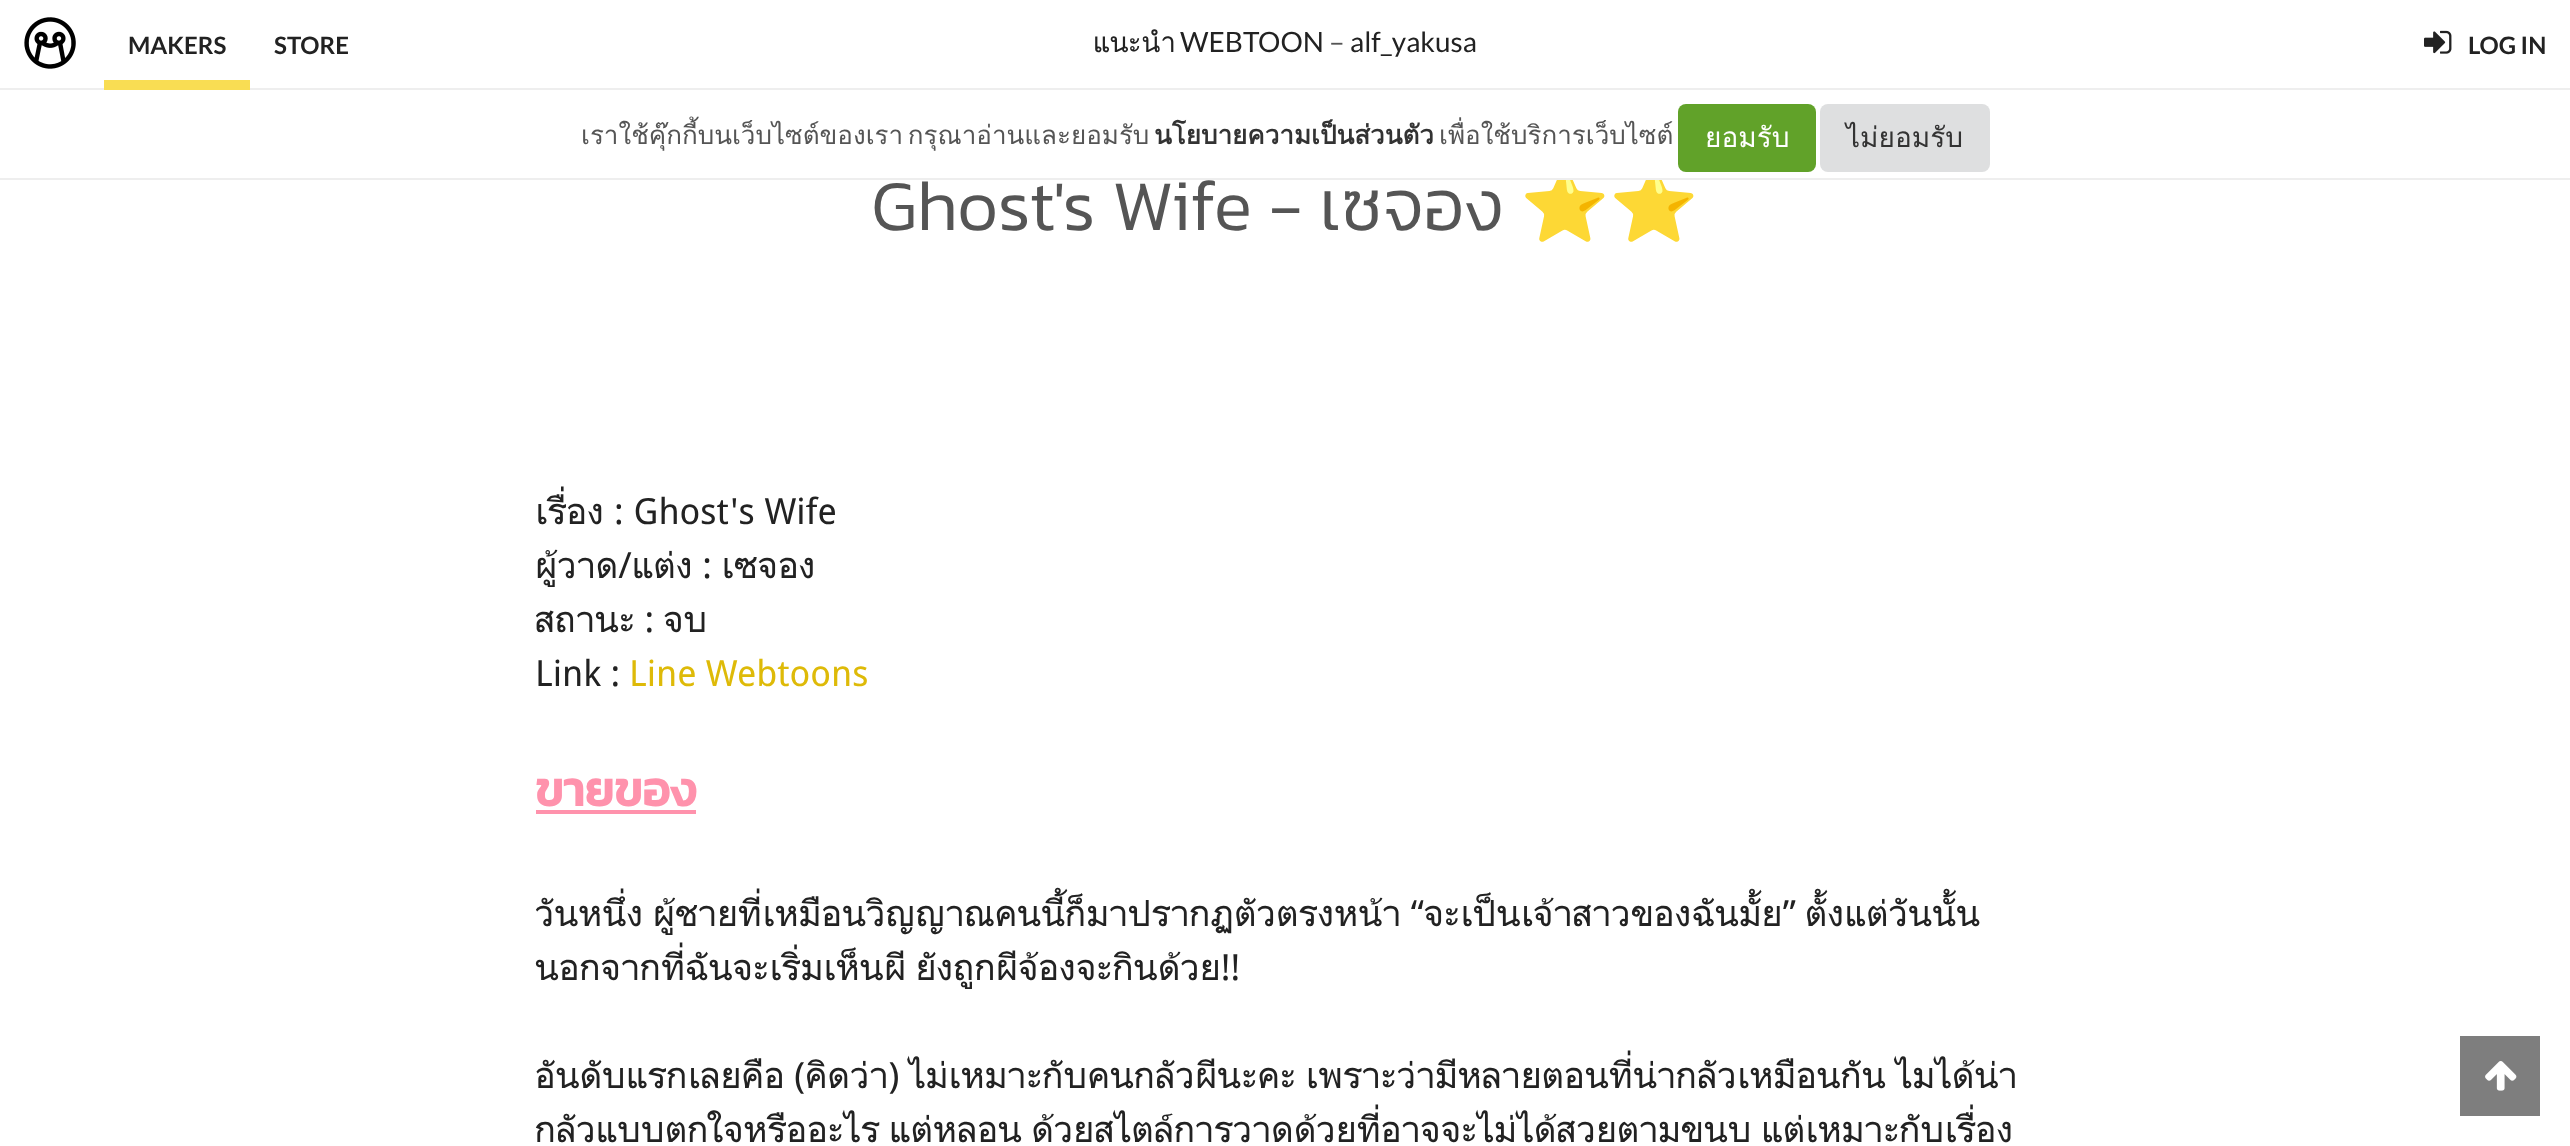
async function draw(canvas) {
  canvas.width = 2570;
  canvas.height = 1146;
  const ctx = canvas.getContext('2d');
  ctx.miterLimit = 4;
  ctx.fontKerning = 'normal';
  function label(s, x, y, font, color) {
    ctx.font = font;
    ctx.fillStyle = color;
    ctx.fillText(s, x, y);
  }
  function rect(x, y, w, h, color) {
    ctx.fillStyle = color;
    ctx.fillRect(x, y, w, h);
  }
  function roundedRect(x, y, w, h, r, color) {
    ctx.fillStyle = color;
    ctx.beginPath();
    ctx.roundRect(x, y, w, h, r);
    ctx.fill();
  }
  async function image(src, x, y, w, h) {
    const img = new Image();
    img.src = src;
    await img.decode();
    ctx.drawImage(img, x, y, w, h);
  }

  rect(0, 0, 2570, 1146, '#fff');
  label('แนะนำ', 1093, 52, '28px Droid Sans', '#222');
  label('WEBTOON', 1180, 52, '28px Lato', '#222');
  label('–', 1329, 52, '28px Lato', '#555');
  label('alf_yakusa', 1350, 52, '28px Lato', '#222');
  label('Ghost\'s Wife - เซจอง', 871, 230, '300 72px Kanit', '#555');
  label('⭐⭐', 1520, 230, '72px Noto Color Emoji', '#555');
  ctx.wordSpacing = '0.5px';
  label('เรื่อง : Ghost\'s Wife', 535, 524, '36px Droid Sans', '#222');
  ctx.wordSpacing = '0px';
  label('ผู้วาด/แต่ง : เซจอง', 535, 578, '36px Droid Sans', '#222');
  label('สถานะ : จบ', 535, 632, '36px Droid Sans', '#222');
  label('Link :', 535, 686, '36px Droid Sans', '#222');
  label('Line Webtoons', 629, 686, '36px Droid Sans', '#deba08');
  label('ขายของ', 535, 806, 'bold 48px Kanit', '#ff92ac');
  rect(536, 810, 160, 4, '#ff92ac');
  label('วันหนึ่ง ผู้ชายที่เหมือนวิญญาณคนนี้ก็มาปรากฏตัวตรงหน้า “จะเป็นเจ้าสาวของฉันมั้ย” ตั้งแต่วันนั้น', 535, 926, '36px Droid Sans', '#222');
  label('นอกจากที่ฉันจะเริ่มเห็นผี ยังถูกผีจ้องจะกินด้วย!!', 535, 980, '36px Droid Sans', '#222');
  label('อันดับแรกเลยคือ (คิดว่า) ไม่เหมาะกับคนกลัวผีนะคะ เพราะว่ามีหลายตอนที่น่ากลัวเหมือนกัน ไมได้น่า', 535, 1088, '36px Droid Sans', '#222');
  label('กลัวแบบตกใจหรืออะไร แต่หลอน ด้วยสไตล์การวาดด้วยที่อาจจะไม่ได้สวยตามขนบ แต่เหมาะกับเรื่อง', 535, 1142, '36px Droid Sans', '#222');
  rect(2460, 1036, 80, 80, '#7e7e7e');
  await image('assets/img1.png', 2485, 1061, 32, 30);
  rect(0, 88, 2570, 2, '#eee');
  await image('assets/img2.png', 24, 17, 52, 52);
  rect(104, 80, 146, 10, '#f9dd53');
  label('MAKERS', 128, 54, 'bold 24px Lato', '#222');
  label('STORE', 274, 54, 'bold 24px Lato', '#222');
  await image('assets/img3.png', 2424, 30, 28, 24);
  label('LOG IN', 2468, 54, 'bold 24px Lato', '#222');
  rect(1520, 165, 177, 13, '#fff');
  rect(0, 178, 2570, 2, '#eee');
  ctx.wordSpacing = '-4px';
  label('เราใช้คุ๊กกี้บนเว็บไซต์ของเรา กรุณาอ่านและยอมรับ', 581, 144, '26px Loma', '#555');
  ctx.wordSpacing = '0px';
  label('นโยบายความเป็นส่วนตัว', 1154, 144, 'bold 26px Loma', '#333');
  label('เพื่อใช้บริการเว็บไซต์', 1439, 144, '26px Loma', '#555');
  roundedRect(1678, 104, 138, 68, 8, '#61a229');
  label('ยอมรับ', 1705, 147, '28px Loma', '#fff');
  roundedRect(1820, 104, 170, 68, 8, '#dedfe0');
  label('ไม่ยอมรับ', 1846, 147, '28px Loma', '#333');
}

draw(document.querySelector('canvas'));
